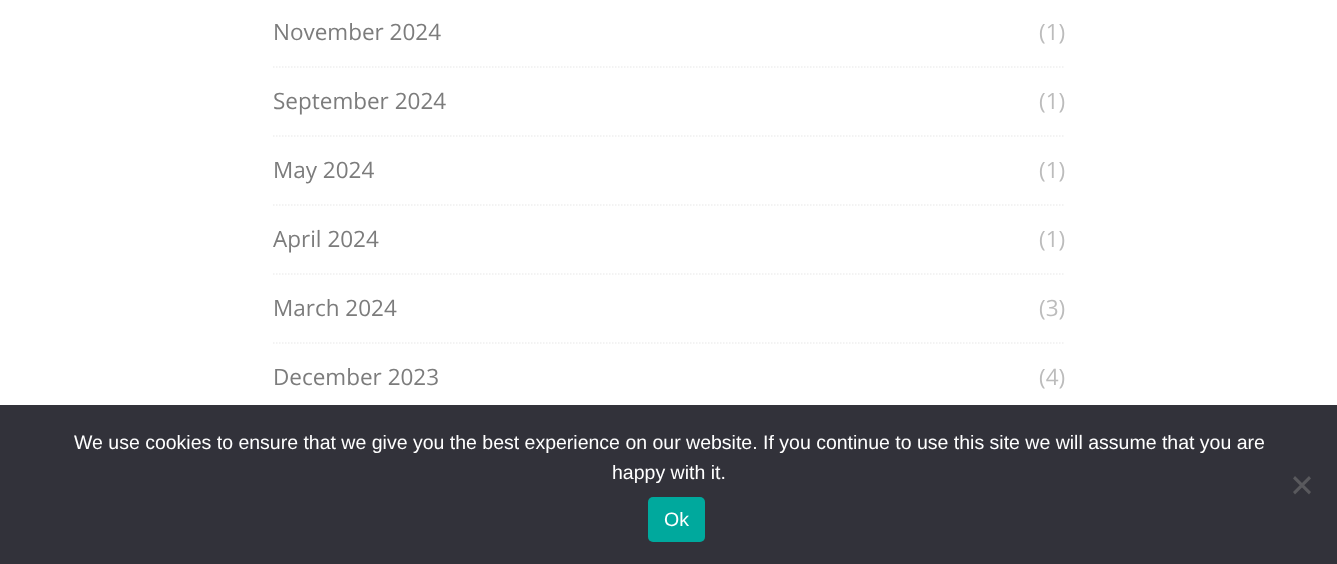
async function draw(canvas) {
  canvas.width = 1337;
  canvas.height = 564;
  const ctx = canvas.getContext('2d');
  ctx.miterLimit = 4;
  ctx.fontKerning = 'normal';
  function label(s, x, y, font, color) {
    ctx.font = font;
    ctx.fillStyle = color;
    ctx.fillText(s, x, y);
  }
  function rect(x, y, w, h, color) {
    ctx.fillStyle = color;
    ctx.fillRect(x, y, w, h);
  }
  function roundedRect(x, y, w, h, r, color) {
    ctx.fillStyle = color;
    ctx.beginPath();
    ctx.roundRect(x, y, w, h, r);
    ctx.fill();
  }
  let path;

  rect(0, 0, 1337, 564, '#fff');
  path = new Path2D('M273 67H1065');
  ctx.strokeStyle = '#efefef';
  ctx.lineWidth = 1.5;
  ctx.setLineDash([1.5, 1.5]);
  ctx.stroke(path);
  label('November 2024', 273, 40, '22.5px Open Sans', '#7c7c7c');
  label('(1)', 1039, 40, '22.5px Open Sans', '#bcbcbc');
  path = new Path2D('M273 136H1065');
  ctx.stroke(path);
  label('September 2024', 273, 109, '22.5px Open Sans', '#7c7c7c');
  label('(1)', 1039, 109, '22.5px Open Sans', '#bcbcbc');
  path = new Path2D('M273 205H1065');
  ctx.stroke(path);
  label('May 2024', 273, 178, '22.5px Open Sans', '#7c7c7c');
  label('(1)', 1039, 178, '22.5px Open Sans', '#bcbcbc');
  path = new Path2D('M273 274H1065');
  ctx.stroke(path);
  label('April 2024', 273, 247, '22.5px Open Sans', '#7c7c7c');
  label('(1)', 1039, 247, '22.5px Open Sans', '#bcbcbc');
  path = new Path2D('M273 343H1065');
  ctx.stroke(path);
  label('March 2024', 273, 316, '22.5px Open Sans', '#7c7c7c');
  label('(3)', 1039, 316, '22.5px Open Sans', '#bcbcbc');
  label('December 2023', 273, 385, '22.5px Open Sans', '#7c7c7c');
  label('(4)', 1039, 385, '22.5px Open Sans', '#bcbcbc');
  rect(0, 405, 1337, 159, '#32323a');
  label('We use cookies to ensure that we give you the best experience on our website. If you continue to use this site we will assume that you are', 74, 449, '19.5px Liberation Sans', '#fff');
  label('happy with it.', 612, 479, '19.5px Liberation Sans', '#fff');
  ctx.fillStyle = '#59595d';
  path = new Path2D('M1309 476L1311 478.5L1295 494.5L1293 492Z');
  ctx.fill(path);
  path = new Path2D('M1293 478.5L1295 476L1311 492L1309 494.5Z');
  ctx.fill(path);
  roundedRect(648, 497, 57, 45, 5, '#00a99d');
  label('Ok', 664, 526, '19.5px Liberation Sans', '#fff');
}

draw(document.querySelector('canvas'));
